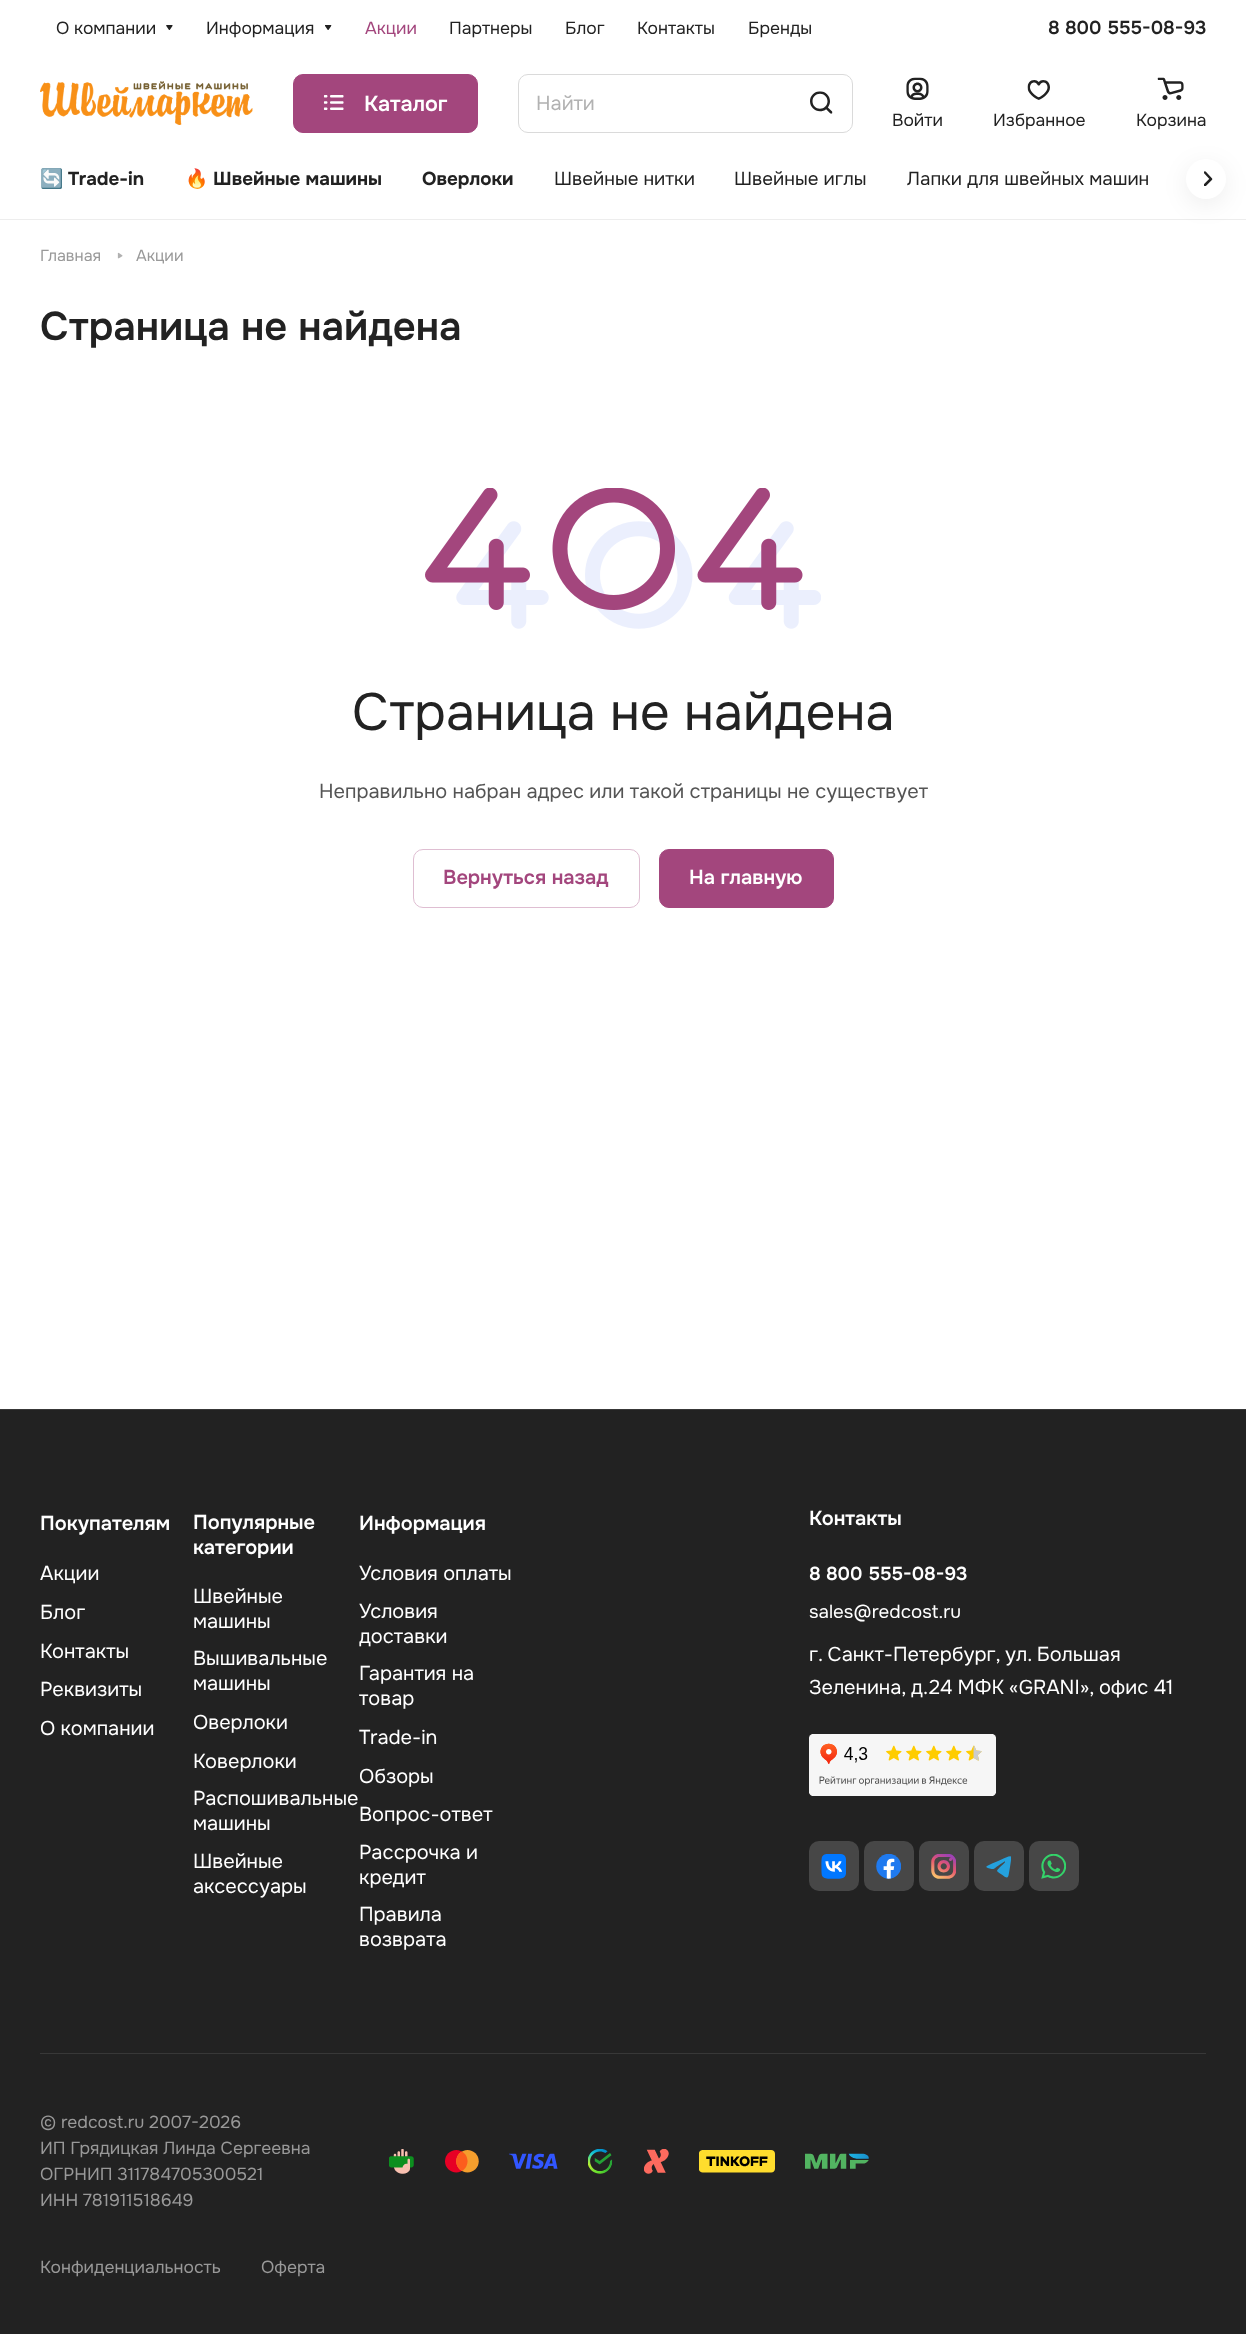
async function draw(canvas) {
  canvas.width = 1246;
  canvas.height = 2334;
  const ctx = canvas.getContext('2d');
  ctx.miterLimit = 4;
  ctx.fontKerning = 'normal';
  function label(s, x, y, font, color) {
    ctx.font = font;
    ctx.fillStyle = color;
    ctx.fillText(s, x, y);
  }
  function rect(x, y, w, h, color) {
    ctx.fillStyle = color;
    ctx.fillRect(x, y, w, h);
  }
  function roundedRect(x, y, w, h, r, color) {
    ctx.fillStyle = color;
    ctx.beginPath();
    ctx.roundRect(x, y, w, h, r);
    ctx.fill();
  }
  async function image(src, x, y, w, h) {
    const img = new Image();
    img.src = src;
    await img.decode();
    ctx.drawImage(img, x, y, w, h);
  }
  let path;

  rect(0, 0, 1246, 2334, '#fff');
  rect(0, 219, 1246, 1, '#ededed');
  label('О компании', 56, 34, '17.5px Onest', '#222');
  await image('assets/img1.png', 166, 25, 7, 5);
  label('Информация', 206, 34, '17.5px Onest', '#222');
  await image('assets/img2.png', 325, 25, 7, 5);
  label('Акции', 365, 34, '17.5px Onest', '#a3467d');
  label('Партнеры', 449, 34, '17.5px Onest', '#222');
  label('Блог', 565, 34, '17.5px Onest', '#222');
  label('Контакты', 637, 34, '17.5px Onest', '#222');
  label('Бренды', 748, 34, '17.5px Onest', '#222');
  label('8 800 555-08-93', 1048, 34, '600 18.75px Onest', '#222');
  await image('assets/img3.png', 40, 81, 213, 44);
  ctx.fillStyle = '#a3467d';
  ctx.beginPath();
  ctx.roundRect(293.5, 74.5, 184, 58, 9.5);
  ctx.fill();
  ctx.strokeStyle = '#a3467d';
  ctx.stroke();
  await image('assets/img4.png', 323, 95, 21, 15);
  label('Каталог', 364, 111, '600 21.5px Onest', '#fff');
  ctx.beginPath();
  ctx.roundRect(518.5, 74.5, 334, 58, 9.5);
  ctx.strokeStyle = '#dadada';
  ctx.stroke();
  label('Найти', 536, 110, '20px Onest', '#b2b2b2');
  await image('assets/img5.png', 810, 91, 23, 23);
  await image('assets/img6.png', 906, 77, 23, 23);
  label('Войти', 892, 126, '17.5px Onest', '#222');
  await image('assets/img7.png', 1027, 80, 23, 20);
  label('Избранное', 993, 126, '17.5px Onest', '#222');
  await image('assets/img8.png', 1157, 77, 27, 23);
  ctx.fillStyle = '#00000012';
  ctx.filter = 'blur(12.5px)';
  ctx.beginPath();
  ctx.roundRect(1186, 165, 40, 40, 20);
  ctx.fill();
  ctx.filter = 'none';
  label('Корзина', 1136, 126, '17.5px Onest', '#222');
  label('🔄', 40, 185, '18.75px Noto Color Emoji', '#222');
  label('Trade-in', 68, 185, 'bold 18.75px Onest', '#222');
  label('🔥', 185, 185, '18.75px Noto Color Emoji', '#222');
  label('Швейные машины', 213, 185, 'bold 18.75px Onest', '#222');
  label('Оверлоки', 422, 185, 'bold 18.75px Onest', '#222');
  label('Швейные нитки', 554, 185, '18.75px Onest', '#222');
  label('Швейные иглы', 734, 185, '18.75px Onest', '#222');
  label('Лапки для швейных машин', 907, 185, '18.75px Onest', '#222');
  ctx.fillStyle = '#fff';
  ctx.beginPath();
  ctx.arc(1206, 179, 20, 0, 2 * Math.PI);
  ctx.fill();
  ctx.save();
  ctx.beginPath();
  ctx.rect(1204, 171, 9, 15);
  ctx.clip();
  path = new Path2D('M1205 172.5L1211 179L1205 185');
  ctx.strokeStyle = '#222';
  ctx.lineWidth = 2.5;
  ctx.lineCap = 'round';
  ctx.lineJoin = 'round';
  ctx.stroke(path);
  ctx.restore();
  label('Главная', 40, 261, '16px Onest', '#999');
  await image('assets/img9.png', 117, 252, 6, 7);
  label('Акции', 136, 261, '16px Onest', '#999');
  label('Страница не найдена', 40, 340, '600 40px Onest', '#222');
  await image('assets/img10.png', 425, 488, 396, 141);
  label('Страница не найдена', 352, 730, '52.5px Onest', '#222');
  label('Неправильно набран адрес или такой страницы не существует', 319, 798, '20px Onest', '#555');
  ctx.beginPath();
  ctx.roundRect(413.5, 849.5, 226, 58, 9.5);
  ctx.strokeStyle = '#dfbed2';
  ctx.stroke();
  label('Вернуться назад', 443, 884, '600 20px Onest', '#a3467d');
  ctx.beginPath();
  ctx.roundRect(659.5, 849.5, 174, 58, 9.5);
  ctx.fill();
  ctx.strokeStyle = '#a3467d';
  ctx.stroke();
  label('На главную', 689, 884, '600 20px Onest', '#fff');
  rect(0, 1410, 1246, 924, '#222');
  rect(0, 1409, 1246, 1, '#383838');
  label('Покупателям', 40, 1530, '600 20px Onest', '#fff');
  label('Акции', 40, 1580, '20px Onest', '#fff');
  label('Блог', 40, 1619, '20px Onest', '#fff');
  label('Контакты', 40, 1658, '20px Onest', '#fff');
  label('Реквизиты', 40, 1696, '20px Onest', '#fff');
  label('О компании', 40, 1735, '20px Onest', '#fff');
  label('Популярные', 193, 1529, '600 20px Onest', '#fff');
  label('категории', 193, 1554, '600 20px Onest', '#fff');
  label('Швейные', 193, 1603, '20px Onest', '#fff');
  label('машины', 193, 1628, '20px Onest', '#fff');
  label('Вышивальные', 193, 1665, '20px Onest', '#fff');
  label('машины', 193, 1690, '20px Onest', '#fff');
  label('Оверлоки', 193, 1729, '20px Onest', '#fff');
  label('Коверлоки', 193, 1768, '20px Onest', '#fff');
  label('Распошивальные', 193, 1805, '20px Onest', '#fff');
  label('машины', 193, 1830, '20px Onest', '#fff');
  label('Швейные', 193, 1868, '20px Onest', '#fff');
  label('аксеcсуары', 193, 1893, '20px Onest', '#fff');
  label('Информация', 359, 1530, '600 20px Onest', '#fff');
  label('Условия оплаты', 359, 1580, '20px Onest', '#fff');
  label('Условия', 359, 1618, '20px Onest', '#fff');
  label('доставки', 359, 1643, '20px Onest', '#fff');
  label('Гарантия на', 359, 1680, '20px Onest', '#fff');
  label('товар', 359, 1705, '20px Onest', '#fff');
  label('Trade-in', 359, 1744, '20px Onest', '#fff');
  label('Обзоры', 359, 1783, '20px Onest', '#fff');
  label('Вопрос-ответ', 359, 1821, '20px Onest', '#fff');
  label('Рассрочка и', 359, 1859, '20px Onest', '#fff');
  label('кредит', 359, 1884, '20px Onest', '#fff');
  label('Правила', 359, 1921, '20px Onest', '#fff');
  label('возврата', 359, 1946, '20px Onest', '#fff');
  label('Контакты', 809, 1525, '600 20px Onest', '#fff');
  label('8 800 555-08-93', 809, 1580, '600 18.75px Onest', '#fff');
  label('sales@redcost.ru', 809, 1618, '18.75px Onest', '#fff');
  ctx.wordSpacing = '-0.5px';
  label('г. Санкт-Петербург, ул. Большая', 809, 1661, '20px Onest', '#fff');
  ctx.wordSpacing = '-0.25px';
  label('Зеленина, д.24 МФК «GRANI», офис 41', 809, 1694, '20px Onest', '#fff');
  await image('assets/img11.png', 809, 1734, 187, 62);
  roundedRect(809, 1841, 50, 50, 10, '#474747');
  await image('assets/img12.png', 821, 1854, 25, 25);
  roundedRect(864, 1841, 50, 50, 10, '#474747');
  await image('assets/img13.png', 876, 1854, 25, 25);
  roundedRect(919, 1841, 50, 50, 10, '#474747');
  await image('assets/img14.png', 931, 1854, 25, 25);
  roundedRect(974, 1841, 50, 50, 10, '#474747');
  await image('assets/img15.png', 986, 1856, 25, 22);
  roundedRect(1029, 1841, 50, 50, 10, '#474747');
  await image('assets/img16.png', 1041, 1854, 25, 25);
  rect(40, 2053, 1166, 1, '#383838');
  ctx.wordSpacing = '0px';
  label('© redcost.ru 2007-2026', 40, 2128, '17.5px Onest', '#999');
  label('ИП Грядицкая Линда Сергеевна', 40, 2154, '17.5px Onest', '#999');
  label('ОГРНИП 311784705300521', 40, 2180, '17.5px Onest', '#999');
  label('ИНН 781911518649', 40, 2206, '17.5px Onest', '#999');
  await image('assets/img17.png', 389, 2149, 25, 25);
  await image('assets/img18.png', 445, 2150, 34, 23);
  await image('assets/img19.png', 509, 2153, 49, 16);
  await image('assets/img20.png', 588, 2149, 25, 25);
  await image('assets/img21.png', 644, 2149, 25, 25);
  await image('assets/img22.png', 699, 2150, 76, 23);
  await image('assets/img23.png', 805, 2153, 64, 16);
  label('Конфиденциальность', 40, 2273, '17.5px Onest', '#999');
  label('Оферта', 261, 2273, '17.5px Onest', '#999');
}

draw(document.querySelector('canvas'));
